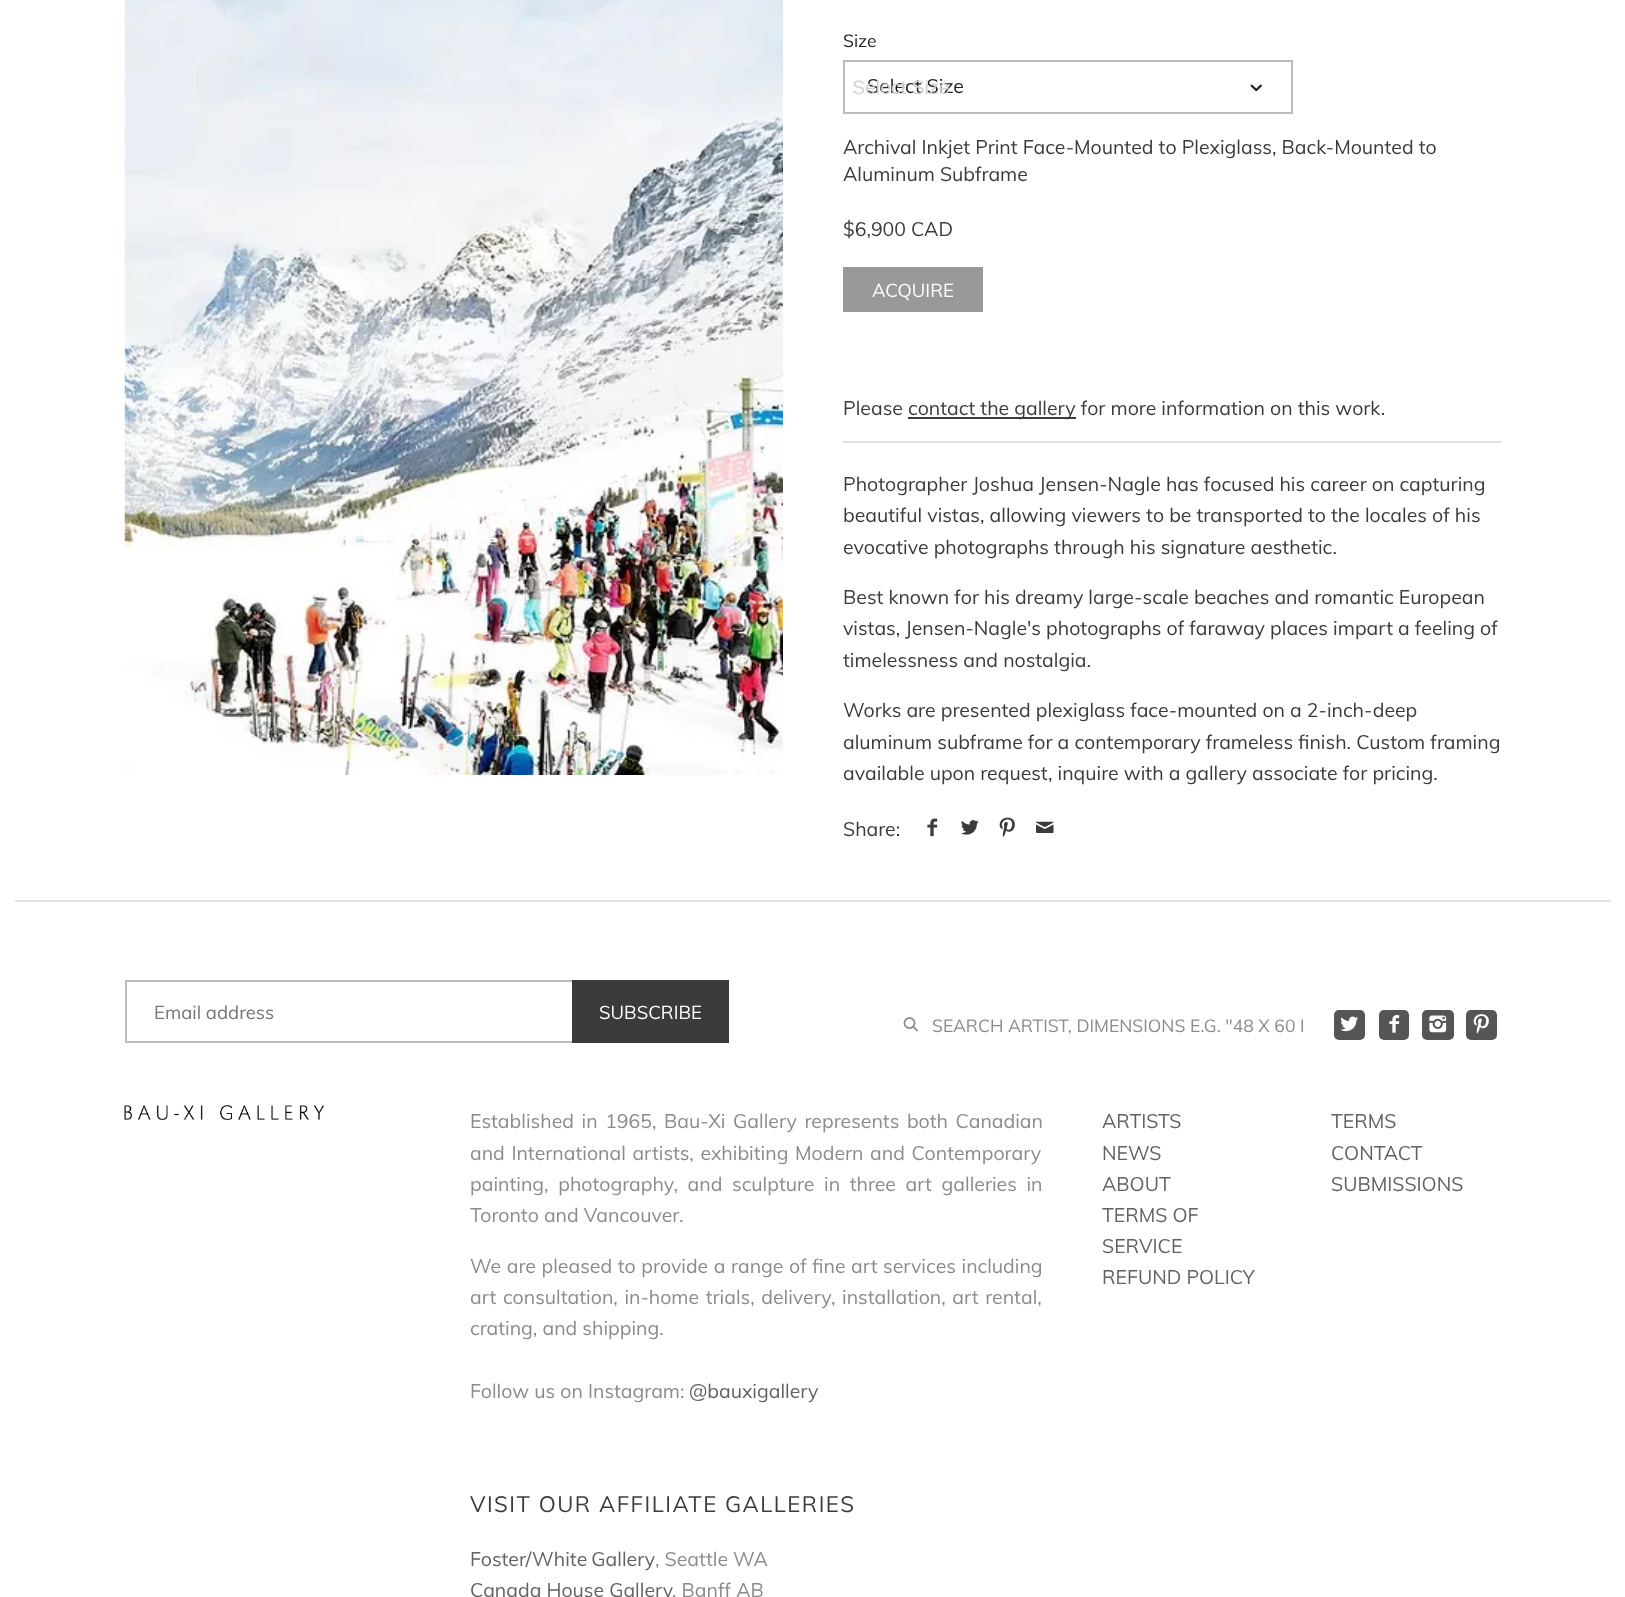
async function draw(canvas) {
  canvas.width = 1625;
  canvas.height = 1597;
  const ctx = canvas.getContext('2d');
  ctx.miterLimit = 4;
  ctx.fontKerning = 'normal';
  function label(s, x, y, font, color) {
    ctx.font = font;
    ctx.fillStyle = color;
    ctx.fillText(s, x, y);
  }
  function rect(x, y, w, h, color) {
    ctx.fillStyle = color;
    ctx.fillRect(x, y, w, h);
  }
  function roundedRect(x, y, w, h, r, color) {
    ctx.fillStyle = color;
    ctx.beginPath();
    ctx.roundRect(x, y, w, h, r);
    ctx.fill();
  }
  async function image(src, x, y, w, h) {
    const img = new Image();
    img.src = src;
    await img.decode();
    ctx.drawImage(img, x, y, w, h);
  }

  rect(0, 0, 1625, 1597, '#fff');
  await image('assets/img1.png', 124, 0, 659, 775);
  rect(843, 441, 659, 2, '#e1e1e1');
  label('Size', 843, 47, '17.55px Muli', '#222');
  ctx.strokeStyle = '#bcbcbc';
  ctx.lineWidth = 2;
  ctx.strokeRect(844, 61, 448, 52);
  label('Select Size', 867, 93, '19.5px Muli', '#222');
  label('Select Size', 852, 94, '19.5px Liberation Sans', '#d2d2d2');
  await image('assets/img2.png', 1250, 84, 12, 8);
  label('Archival Inkjet Print Face-Mounted to Plexiglass, Back-Mounted to', 843, 154, '19.5px Muli', '#3a3b3c');
  label('Aluminum Subframe', 843, 181, '19.5px Muli', '#3a3b3c');
  label('$6,900 CAD', 843, 236, '19.5px Muli', '#3a3b3c');
  rect(843, 267, 140, 45, '#999');
  label('ACQUIRE', 872, 297, '18.5px Muli', '#fff');
  label('Please', 843, 415, '19.5px Muli', '#3a3b3c');
  rect(908, 417, 168, 2, '#3a3b3c');
  label('contact the gallery for more information on this work.', 908, 415, '19.5px Muli', '#3a3b3c');
  label('Photographer Joshua Jensen-Nagle has focused his career on capturing', 843, 491, '19.5px Muli', '#3a3b3c');
  label('beautiful vistas, allowing viewers to be transported to the locales of his', 843, 522, '19.5px Muli', '#3a3b3c');
  label('evocative photographs through his signature aesthetic.', 843, 554, '19.5px Muli', '#3a3b3c');
  label('Best known for his dreamy large-scale beaches and romantic European', 843, 604, '19.5px Muli', '#3a3b3c');
  label('vistas, Jensen-Nagle\'s photographs of faraway places impart a feeling of', 843, 635, '19.5px Muli', '#3a3b3c');
  label('timelessness and nostalgia.', 843, 667, '19.5px Muli', '#3a3b3c');
  label('Works are presented plexiglass face-mounted on a 2-inch-deep', 843, 717, '19.5px Muli', '#3a3b3c');
  label('aluminum subframe for a contemporary frameless finish. Custom framing', 843, 749, '19.5px Muli', '#3a3b3c');
  label('available upon request, inquire with a gallery associate for pricing.', 843, 780, '19.5px Muli', '#3a3b3c');
  label('Share:', 843, 836, '19.5px Muli', '#3a3b3c');
  await image('assets/img3.png', 927, 818, 11, 19);
  await image('assets/img4.png', 961, 820, 18, 15);
  await image('assets/img5.png', 999, 817, 16, 20);
  await image('assets/img6.png', 1036, 821, 18, 12);
  rect(15, 900, 1596, 2, '#e1e1e1');
  ctx.strokeRect(126, 981, 601, 61);
  label('Email address', 154, 1019, '18.5px Muli', '#757575');
  rect(572, 980, 157, 63, '#3a3b3c');
  label('SUBSCRIBE', 599, 1019, '18.5px Muli', '#fff');
  await image('assets/img7.png', 903, 1017, 15, 15);
  label('SEARCH ARTIST, DIMENSIONS E.G. "48 X 60 I', 932, 1032, '17.55px Muli', '#8b8b8b');
  roundedRect(1334, 1010, 31, 30, 5, '#555');
  await image('assets/img8.png', 1340, 1016, 19, 16);
  roundedRect(1379, 1010, 30, 30, 5, '#555');
  await image('assets/img9.png', 1389, 1015, 11, 18);
  roundedRect(1422, 1010, 32, 30, 5, '#555');
  await image('assets/img10.png', 1429, 1015, 18, 18);
  roundedRect(1466, 1010, 31, 30, 5, '#555');
  await image('assets/img11.png', 1473, 1014, 16, 20);
  await image('assets/img12.png', 124, 1105, 200, 15);
  ctx.wordSpacing = '2.5px';
  label('Established in 1965, Bau-Xi Gallery represents both Canadian', 470, 1128, '19.5px Muli', '#8b8b8b');
  ctx.wordSpacing = '1.5px';
  label('and International artists, exhibiting Modern and Contemporary', 470, 1160, '19.5px Muli', '#8b8b8b');
  ctx.wordSpacing = '4.5px';
  label('painting, photography, and sculpture in three art galleries in', 470, 1191, '19.5px Muli', '#8b8b8b');
  ctx.wordSpacing = '0px';
  label('Toronto and Vancouver.', 470, 1222, '19.5px Muli', '#8b8b8b');
  ctx.wordSpacing = '0.5px';
  label('We are pleased to provide a range of fine art services including', 470, 1273, '19.5px Muli', '#8b8b8b');
  ctx.wordSpacing = '1.5px';
  label('art consultation, in-home trials, delivery, installation, art rental,', 470, 1304, '19.5px Muli', '#8b8b8b');
  ctx.wordSpacing = '0px';
  label('crating, and shipping.', 470, 1335, '19.5px Muli', '#8b8b8b');
  label('Follow us on Instagram:', 470, 1398, '19.5px Muli', '#8b8b8b');
  label('@bauxigallery', 689, 1398, '19.5px Muli', '#626262');
  ctx.letterSpacing = '1.5px';
  label('VISIT OUR AFFILIATE GALLERIES', 470, 1512, '22.1px Muli', '#3a3b3c');
  ctx.letterSpacing = '0px';
  ctx.wordSpacing = '-1px';
  label('Foster/White Gallery', 470, 1566, '19.5px Muli', '#626262');
  ctx.wordSpacing = '0px';
  label(', Seattle WA', 655, 1566, '19.5px Muli', '#8b8b8b');
  label('Canada House Gallery', 470, 1597, '19.5px Muli', '#626262');
  label(', Banff AB', 672, 1597, '19.5px Muli', '#8b8b8b');
  label('ARTISTS', 1102, 1128, '19.5px Muli', '#626262');
  label('NEWS', 1102, 1160, '19.5px Muli', '#626262');
  label('ABOUT', 1102, 1191, '19.5px Muli', '#626262');
  label('TERMS OF', 1102, 1222, '19.5px Muli', '#626262');
  label('SERVICE', 1102, 1253, '19.5px Muli', '#626262');
  label('REFUND POLICY', 1102, 1284, '19.5px Muli', '#626262');
  label('TERMS', 1331, 1128, '19.5px Muli', '#626262');
  label('CONTACT', 1331, 1160, '19.5px Muli', '#626262');
  label('SUBMISSIONS', 1331, 1191, '19.5px Muli', '#626262');
}

draw(document.querySelector('canvas'));
